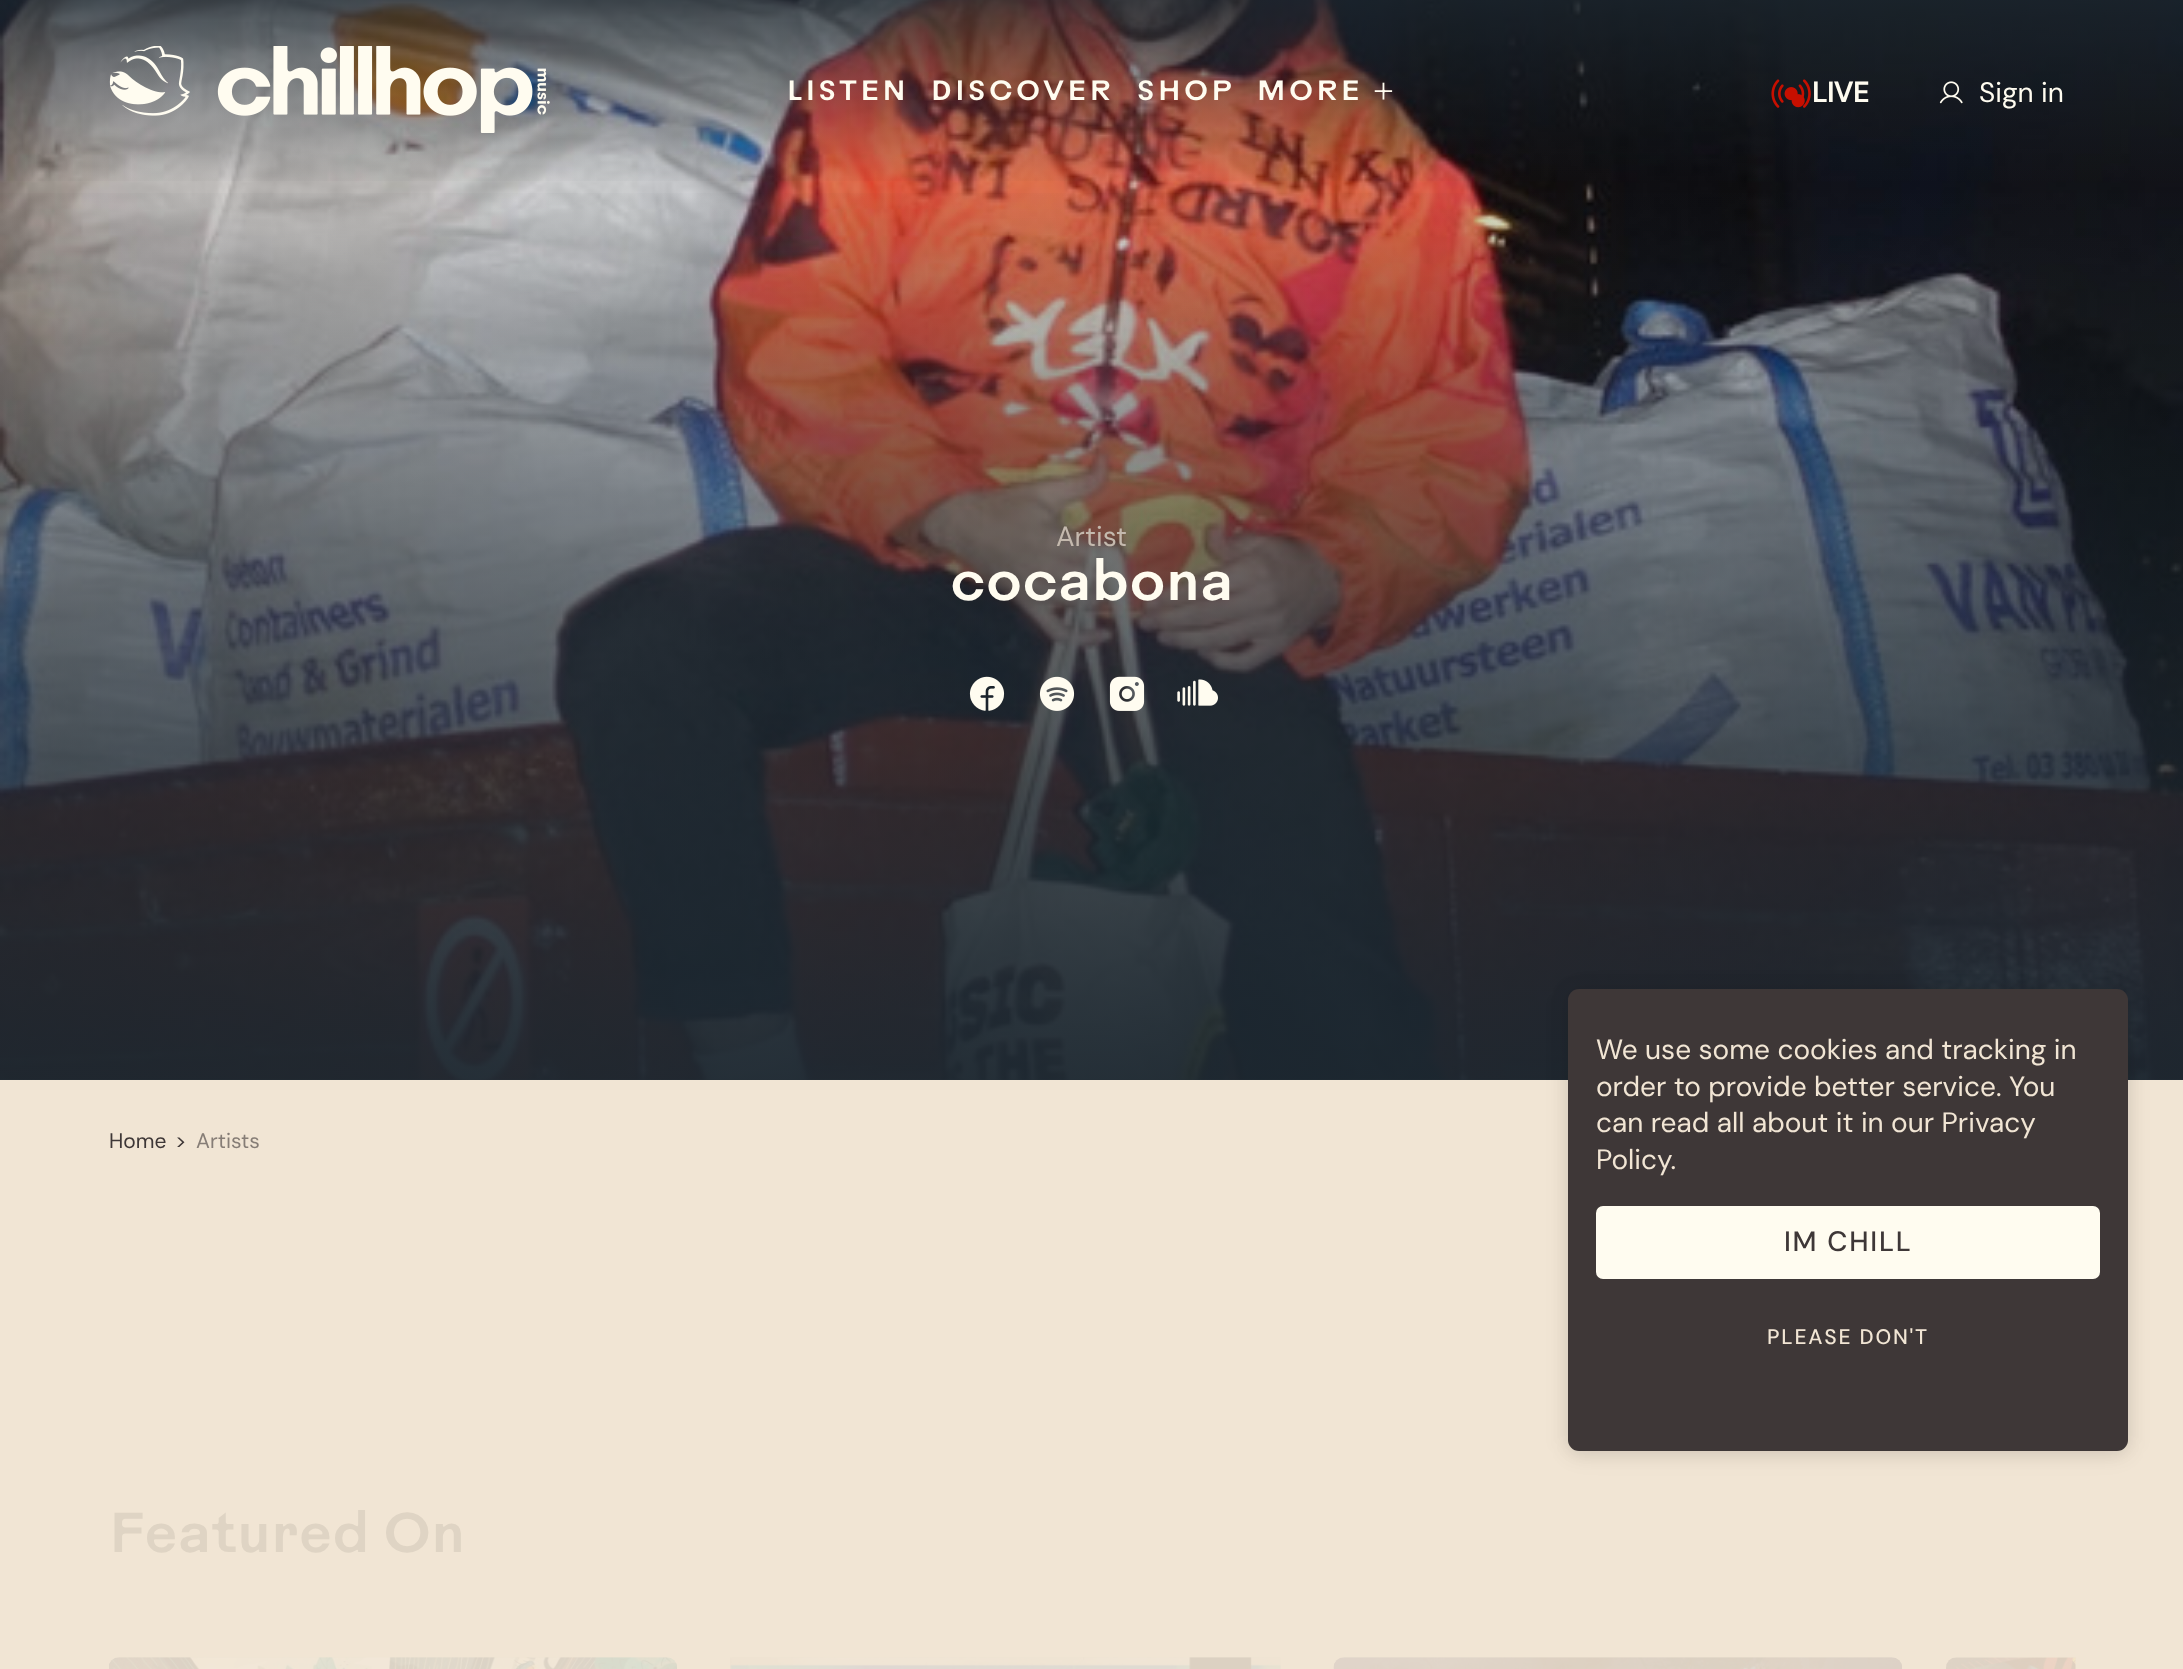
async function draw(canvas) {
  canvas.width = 2183;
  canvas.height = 1669;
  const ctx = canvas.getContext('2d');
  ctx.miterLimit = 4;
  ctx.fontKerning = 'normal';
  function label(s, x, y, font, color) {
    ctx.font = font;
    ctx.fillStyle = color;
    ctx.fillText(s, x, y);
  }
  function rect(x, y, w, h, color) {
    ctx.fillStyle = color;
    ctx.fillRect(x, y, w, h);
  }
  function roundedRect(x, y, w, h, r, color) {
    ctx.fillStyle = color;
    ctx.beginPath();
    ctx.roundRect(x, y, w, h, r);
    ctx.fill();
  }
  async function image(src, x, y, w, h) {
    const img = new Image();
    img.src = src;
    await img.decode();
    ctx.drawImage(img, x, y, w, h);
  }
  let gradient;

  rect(0, 0, 2183, 1669, '#f1e5d4');
  await image('assets/img4.png', 0, 0, 2183, 1080);
  gradient = ctx.createLinearGradient(1092, -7, 1092, 1080);
  gradient.addColorStop(0, '#1c273000');
  gradient.addColorStop(1, '#1c2730cc');
  ctx.fillStyle = gradient;
  ctx.fillRect(0, 22, 2183, 1058);
  gradient = ctx.createLinearGradient(1092, 186, 1092, 0);
  gradient.addColorStop(0, '#1c273000');
  gradient.addColorStop(1, '#1c2730cc');
  ctx.fillStyle = gradient;
  ctx.fillRect(0, 0, 2183, 181);
  await image('assets/img1.png', 109, 46, 441, 87);
  ctx.letterSpacing = '3.5px';
  label('LISTEN', 787, 100, '500 28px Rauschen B', '#fffcf0');
  label('DISCOVER', 931, 100, '500 28px Rauschen B', '#fffcf0');
  label('SHOP', 1137, 100, '500 28px Rauschen B', '#fffcf0');
  label('MORE +', 1257, 100, '500 28px Rauschen B', '#fffcf0');
  await image('assets/img2.png', 1771, 79, 40, 29);
  ctx.letterSpacing = '0px';
  label('LIVE', 1812, 102, 'bold 28px DM Sans', '#fffcf0');
  await image('assets/img3.png', 1939, 81, 24, 23);
  label('Sign in', 1979, 102, '28px DM Sans', '#fffcf0');
  gradient = ctx.createLinearGradient(1092, 168, 1092, 1080);
  gradient.addColorStop(0, '#1c273000');
  gradient.addColorStop(1, '#1c2730cc');
  ctx.fillStyle = gradient;
  ctx.fillRect(0, 193, 2183, 887);
  label('Artist', 1056, 546, '28px DM Sans', '#c4b9ae');
  label('cocabona', 950, 600, '500 56px Rauschen B', '#fffcf0');
  await image('assets/img5.png', 969, 676, 36, 35);
  await image('assets/img6.png', 1039, 676, 36, 35);
  await image('assets/img7.png', 1109, 676, 36, 35);
  await image('assets/img8.png', 1177, 679, 41, 27);
  label('Home', 109, 1148, '21px DM Sans', '#3e3737');
  label('>', 175, 1148, '21px DM Sans', '#3e3737');
  label('Artists', 196, 1148, '21px DM Sans', '#867d76');
  label('Featured On', 109, 1552, '500 56px Rauschen B', '#dfd4c4');
  await image('assets/img9.png', 109, 1657, 568, 12);
  await image('assets/img10.png', 730, 1657, 551, 12);
  await image('assets/img11.png', 1333, 1657, 569, 12);
  await image('assets/img12.png', 1946, 1657, 130, 12);
  ctx.fillStyle = '#0000000d';
  ctx.filter = 'blur(13px)';
  ctx.beginPath();
  ctx.roundRect(1568, 992, 560, 462, 11);
  ctx.fill();
  ctx.filter = 'none';
  ctx.fillStyle = '#0000001a';
  ctx.filter = 'blur(9px)';
  ctx.beginPath();
  ctx.roundRect(1568, 991, 560, 462, 11);
  ctx.fill();
  ctx.filter = 'none';
  roundedRect(1568, 989, 560, 462, 11, '#3e3737');
  label('We use some cookies and tracking in', 1596, 1059, '28px DM Sans', '#f1e5d4');
  label('order to provide better service. You', 1596, 1096, '28px DM Sans', '#f1e5d4');
  label('can read all about it in our Privacy', 1596, 1132, '28px DM Sans', '#f1e5d4');
  label('Policy.', 1596, 1169, '28px DM Sans', '#f1e5d4');
  roundedRect(1596, 1206, 504, 73, 7, '#fffcf0');
  ctx.letterSpacing = '1.75px';
  label('IM CHILL', 1784, 1251, '500 28px DM Sans', '#3e3737');
  label('PLEASE DON\'T', 1767, 1344, '500 21px "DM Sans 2"', '#f1e5d4');
}

draw(document.querySelector('canvas'));
